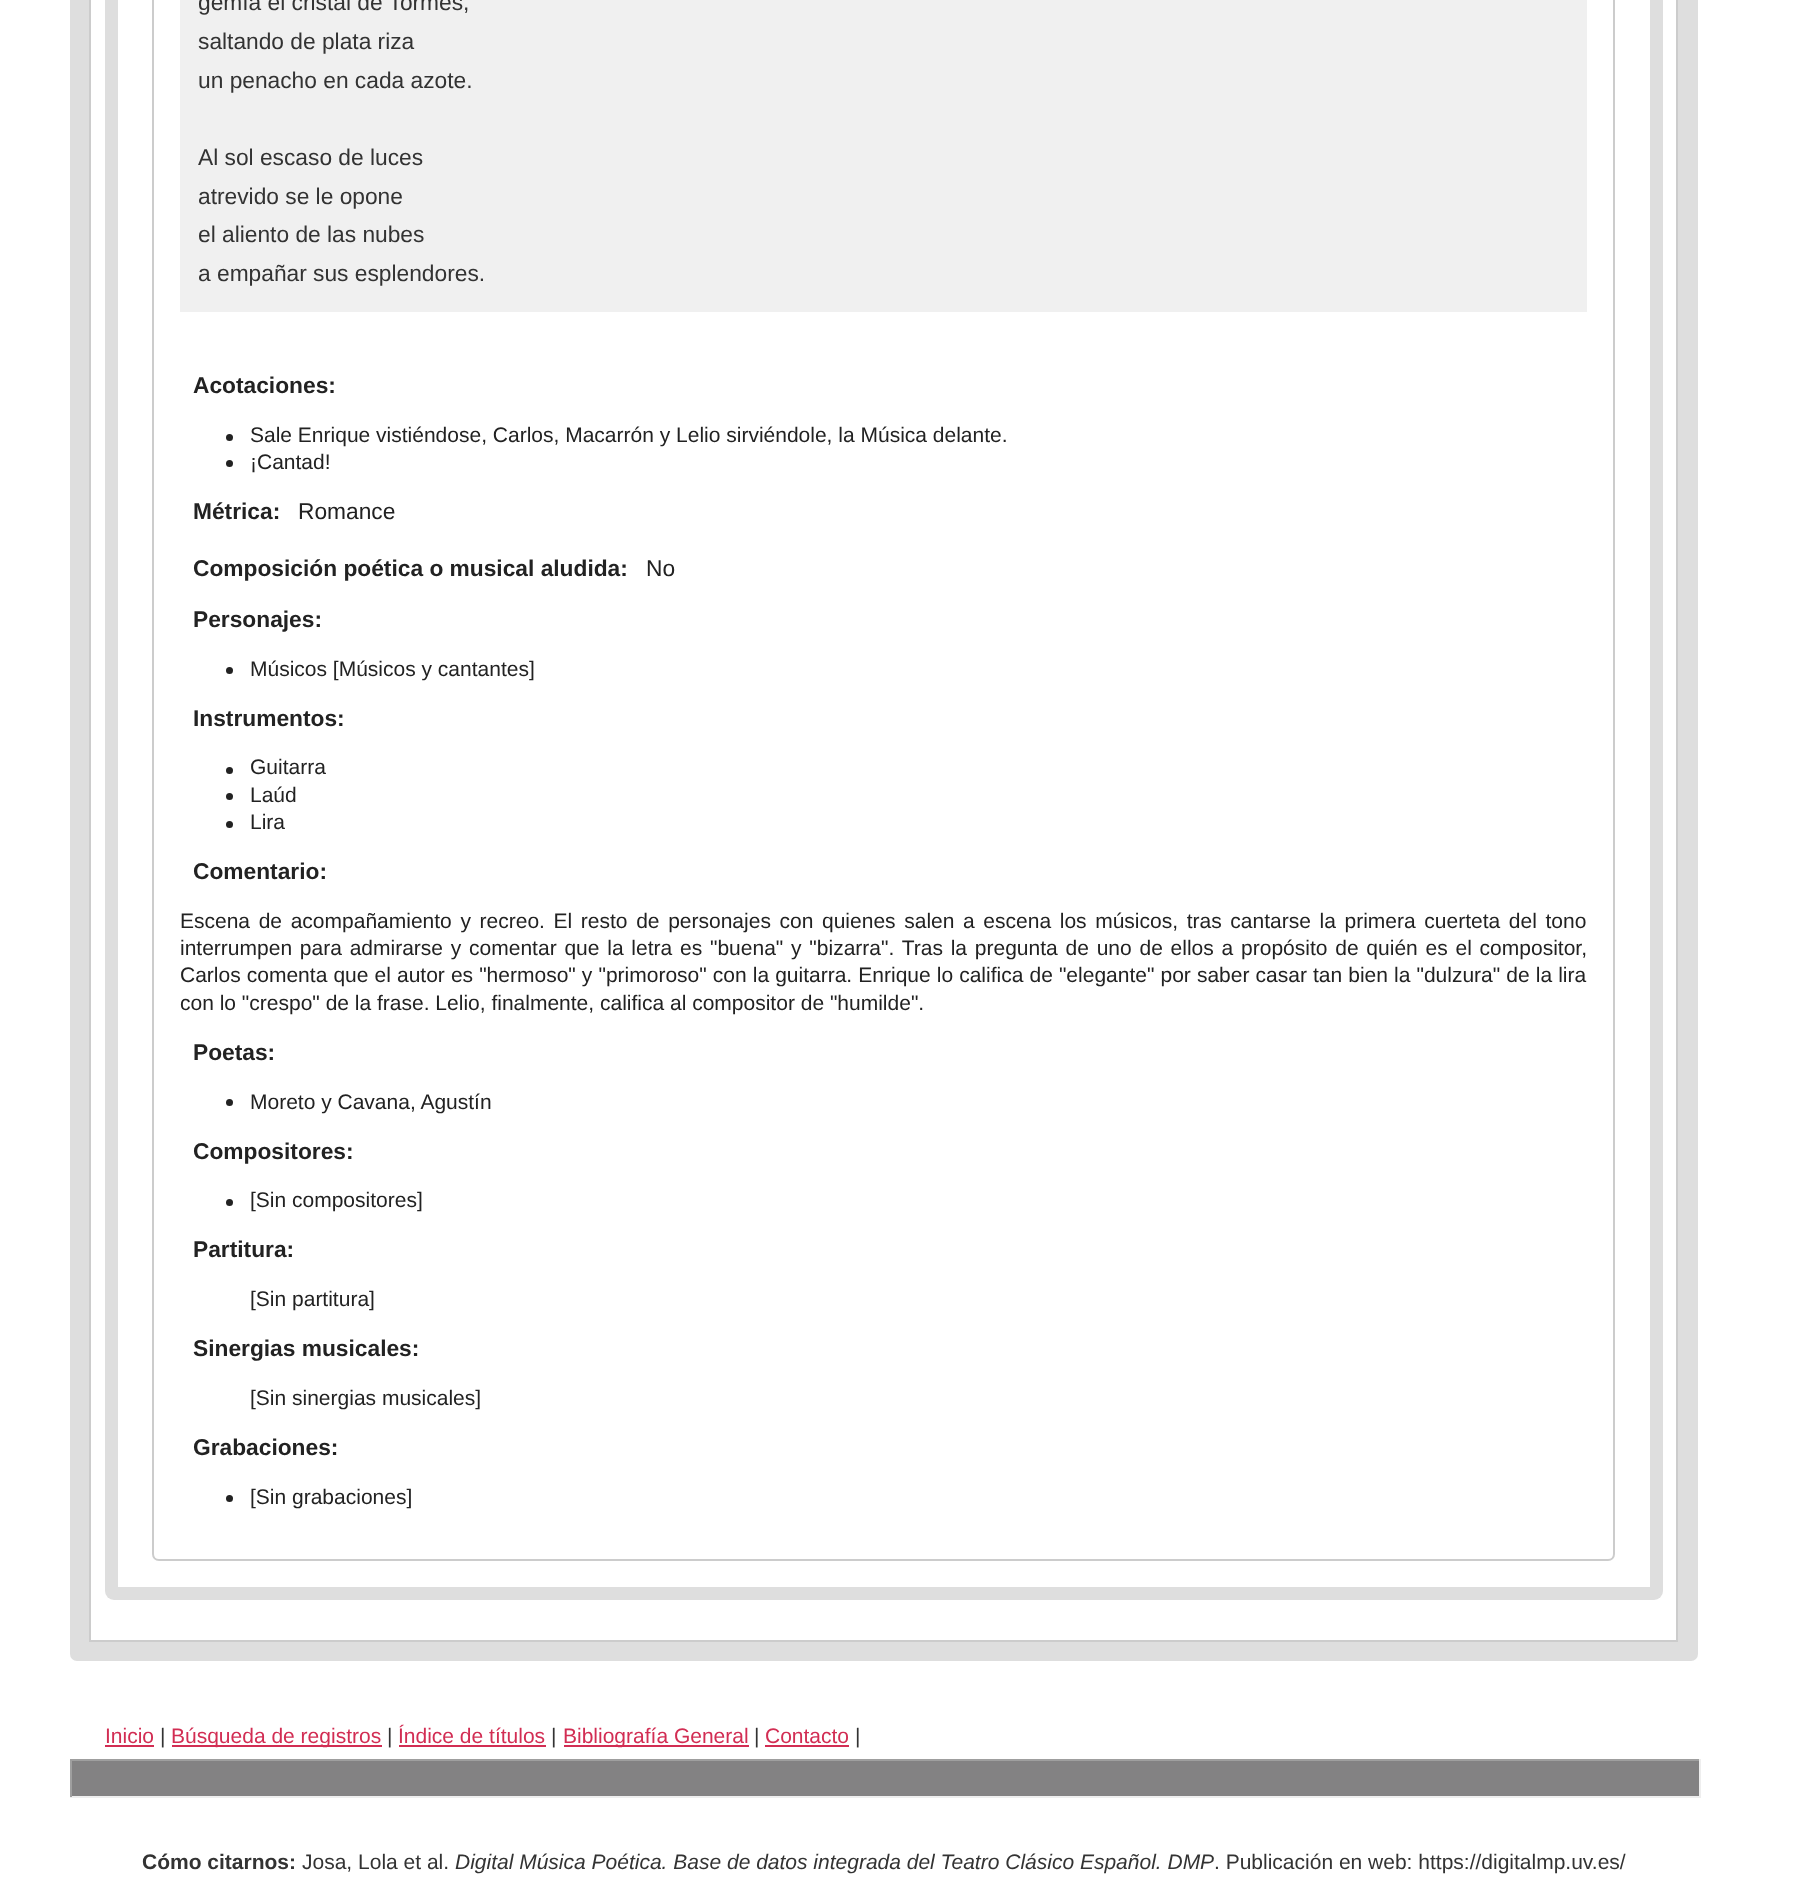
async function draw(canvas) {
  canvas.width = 1793;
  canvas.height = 1892;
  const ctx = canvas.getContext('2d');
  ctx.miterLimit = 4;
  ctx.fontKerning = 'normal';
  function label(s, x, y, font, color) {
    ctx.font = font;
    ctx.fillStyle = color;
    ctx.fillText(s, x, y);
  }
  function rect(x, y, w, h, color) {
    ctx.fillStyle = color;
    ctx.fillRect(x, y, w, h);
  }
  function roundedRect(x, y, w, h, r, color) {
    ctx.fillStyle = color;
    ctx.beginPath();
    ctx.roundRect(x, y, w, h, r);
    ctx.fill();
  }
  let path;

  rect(0, 0, 1793, 1892, '#fff');
  roundedRect(70, -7, 1628, 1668, 7, '#dedede');
  ctx.fillStyle = '#fff';
  ctx.beginPath();
  ctx.rect(90, -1, 1587, 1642);
  ctx.fill();
  ctx.strokeStyle = '#ccc';
  ctx.lineWidth = 2;
  ctx.stroke();
  roundedRect(105, -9, 1558, 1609, 9, '#dedede');
  rect(118, 0, 1532, 1587, '#fff');
  path = new Path2D('M153-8H1614V1554C1614 1557.5 1611.5 1560 1608 1560H159C155.5 1560 153 1557.5 153 1554Z');
  ctx.stroke(path);
  rect(180, 0, 1407, 312, '#f0f0f0');
  label('gemía el cristal de Tormes,', 198, 10, '22.75px Liberation Sans', '#333');
  label('saltando de plata riza', 198, 49, '22.75px Liberation Sans', '#333');
  label('un penacho en cada azote.', 198, 88, '22.75px Liberation Sans', '#333');
  label('Al sol escaso de luces', 198, 165, '22.75px Liberation Sans', '#333');
  label('atrevido se le opone', 198, 204, '22.75px Liberation Sans', '#333');
  label('el aliento de las nubes', 198, 242, '22.75px Liberation Sans', '#333');
  label('a empañar sus esplendores.', 198, 281, '22.75px Liberation Sans', '#333');
  label('Acotaciones:', 193, 393, 'bold 22.75px Liberation Sans', '#222');
  ctx.beginPath();
  ctx.arc(229.5, 437.5, 3.5, 0, 2 * Math.PI);
  ctx.fill();
  label('Sale Enrique vistiéndose, Carlos, Macarrón y Lelio sirviéndole, la Música delante.', 250, 442, '21px Liberation Sans', '#222');
  ctx.beginPath();
  ctx.arc(229.5, 463.5, 3.5, 0, 2 * Math.PI);
  ctx.fill();
  label('¡Cantad!', 250, 469, '21px Liberation Sans', '#222');
  label('Métrica:', 193, 519, 'bold 22.75px Liberation Sans', '#222');
  label('Romance', 298, 519, '22.75px Liberation Sans', '#222');
  label('Composición poética o musical aludida:', 193, 576, 'bold 22.75px Liberation Sans', '#222');
  label('No', 646, 576, '22.75px Liberation Sans', '#222');
  label('Personajes:', 193, 627, 'bold 22.75px Liberation Sans', '#222');
  ctx.beginPath();
  ctx.arc(229.5, 670.5, 3.5, 0, 2 * Math.PI);
  ctx.fill();
  label('Músicos [Músicos y cantantes]', 250, 676, '21px Liberation Sans', '#222');
  label('Instrumentos:', 193, 726, 'bold 22.75px Liberation Sans', '#222');
  ctx.beginPath();
  ctx.arc(229.5, 770.5, 3.5, 0, 2 * Math.PI);
  ctx.fill();
  label('Guitarra', 250, 774, '21px Liberation Sans', '#222');
  ctx.beginPath();
  ctx.arc(229.5, 796.5, 3.5, 0, 2 * Math.PI);
  ctx.fill();
  label('Laúd', 250, 802, '21px Liberation Sans', '#222');
  ctx.beginPath();
  ctx.arc(229.5, 824.5, 3.5, 0, 2 * Math.PI);
  ctx.fill();
  label('Lira', 250, 829, '21px Liberation Sans', '#222');
  label('Comentario:', 193, 879, 'bold 22.75px Liberation Sans', '#222');
  ctx.wordSpacing = '2.8px';
  label('Escena de acompañamiento y recreo. El resto de personajes con quienes salen a escena los músicos, tras cantarse la primera cuerteta del tono', 180, 928, '21px Liberation Sans', '#222');
  ctx.wordSpacing = '1.95px';
  label('interrumpen para admirarse y comentar que la letra es "buena" y "bizarra". Tras la pregunta de uno de ellos a propósito de quién es el compositor,', 180, 955, '21px Liberation Sans', '#222');
  ctx.wordSpacing = '0.25px';
  label('Carlos comenta que el autor es "hermoso" y "primoroso" con la guitarra. Enrique lo califica de "elegante" por saber casar tan bien la "dulzura" de la lira', 180, 982, '21px Liberation Sans', '#222');
  ctx.wordSpacing = '0px';
  label('con lo "crespo" de la frase. Lelio, finalmente, califica al compositor de "humilde".', 180, 1010, '21px Liberation Sans', '#222');
  label('Poetas:', 193, 1060, 'bold 22.75px Liberation Sans', '#222');
  ctx.beginPath();
  ctx.arc(229.5, 1102.5, 3.5, 0, 2 * Math.PI);
  ctx.fill();
  label('Moreto y Cavana, Agustín', 250, 1109, '21px Liberation Sans', '#222');
  label('Compositores:', 193, 1159, 'bold 22.75px Liberation Sans', '#222');
  ctx.beginPath();
  ctx.arc(229.5, 1202.5, 3.5, 0, 2 * Math.PI);
  ctx.fill();
  label('[Sin compositores]', 250, 1207, '21px Liberation Sans', '#222');
  label('Partitura:', 193, 1257, 'bold 22.75px Liberation Sans', '#222');
  label('[Sin partitura]', 250, 1306, '21px Liberation Sans', '#222');
  label('Sinergias musicales:', 193, 1356, 'bold 22.75px Liberation Sans', '#222');
  label('[Sin sinergias musicales]', 250, 1405, '21px Liberation Sans', '#222');
  label('Grabaciones:', 193, 1455, 'bold 22.75px Liberation Sans', '#222');
  ctx.beginPath();
  ctx.arc(229.5, 1498.5, 3.5, 0, 2 * Math.PI);
  ctx.fill();
  label('[Sin grabaciones]', 250, 1504, '21px Liberation Sans', '#222');
  label('Inicio', 105, 1743, '21px Liberation Sans', '#d22d53');
  rect(105, 1745, 49, 2, '#d22d53');
  label('|', 160, 1743, '21px Liberation Sans', '#333');
  rect(172, 1745, 210, 2, '#d22d53');
  label('Búsqueda de registros', 171, 1743, '21px Liberation Sans', '#d22d53');
  label('|', 387, 1743, '21px Liberation Sans', '#333');
  label('Índice de títulos', 398, 1743, '21px Liberation Sans', '#d22d53');
  rect(399, 1745, 147, 2, '#d22d53');
  label('|', 551, 1743, '21px Liberation Sans', '#333');
  rect(564, 1745, 185, 2, '#d22d53');
  label('Bibliografía General', 563, 1743, '21px Liberation Sans', '#d22d53');
  label('|', 754, 1743, '21px Liberation Sans', '#333');
  label('Contacto', 765, 1743, '21px Liberation Sans', '#d22d53');
  rect(765, 1745, 84, 2, '#d22d53');
  label('|', 855, 1743, '21px Liberation Sans', '#333');
  rect(72, 1761, 1627, 35, '#838283');
  rect(70, 1759, 1631, 2, '#9f9f9f');
  rect(1699, 1759, 2, 38, '#eee');
  rect(70, 1796, 1631, 2, '#eee');
  rect(70, 1759, 2, 38, '#9f9f9f');
  label('Cómo citarnos:', 142, 1869, 'bold 21px Liberation Sans', '#333');
  label('Josa, Lola et al.', 302, 1869, '21px Liberation Sans', '#333');
  label('Digital Música Poética. Base de datos integrada del Teatro Clásico Español. DMP', 455, 1869, 'italic 21px Liberation Sans', '#333');
  label('. Publicación en web: https://digitalmp.uv.es/', 1214, 1869, '21px Liberation Sans', '#333');
}

draw(document.querySelector('canvas'));
